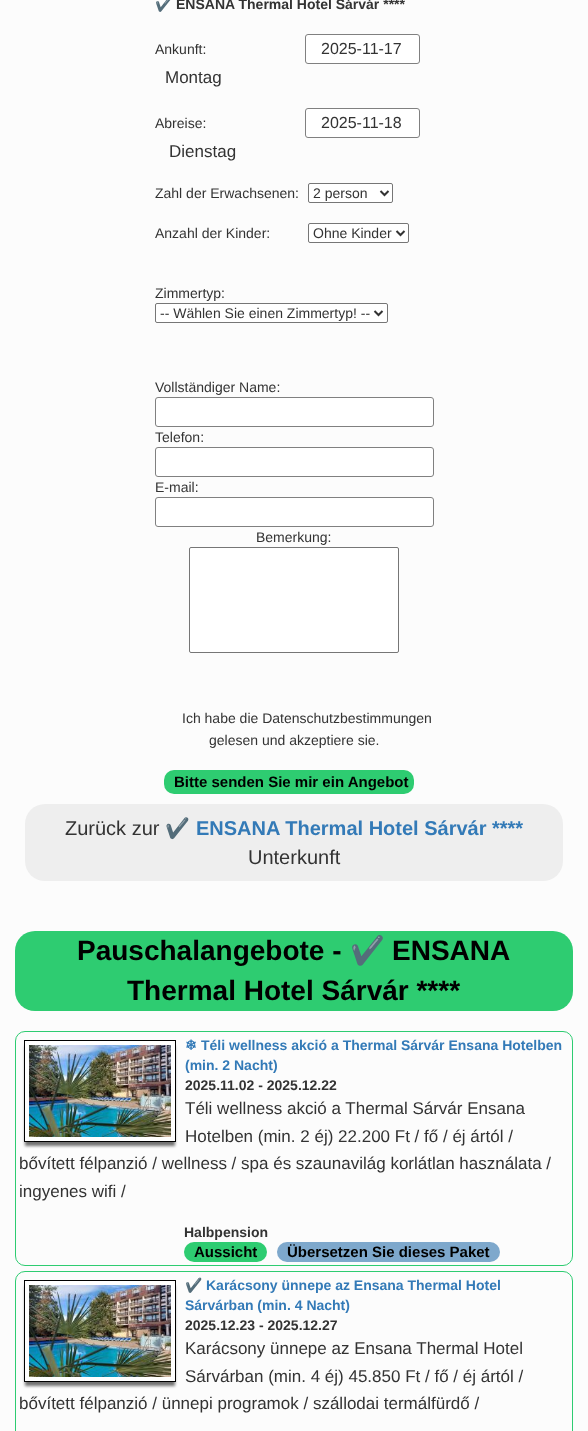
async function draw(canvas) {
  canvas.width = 588;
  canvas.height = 1431;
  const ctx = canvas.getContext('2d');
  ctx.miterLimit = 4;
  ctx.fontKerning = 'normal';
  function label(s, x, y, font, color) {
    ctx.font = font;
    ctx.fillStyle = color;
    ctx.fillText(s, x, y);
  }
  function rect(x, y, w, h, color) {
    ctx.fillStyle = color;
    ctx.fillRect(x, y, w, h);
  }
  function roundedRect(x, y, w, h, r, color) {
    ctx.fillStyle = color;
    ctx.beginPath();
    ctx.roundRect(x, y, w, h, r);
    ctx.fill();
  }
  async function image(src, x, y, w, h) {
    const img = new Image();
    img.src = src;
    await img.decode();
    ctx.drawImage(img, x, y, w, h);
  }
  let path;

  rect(0, 0, 588, 1431, '#fcfcfc');
  label('✔️', 155, 9, 'bold 14px Noto Color Emoji', '#333');
  label('ENSANA Thermal Hotel Sárvár ****', 176, 9, 'bold 14px Liberation Sans', '#333');
  label('Ankunft:', 155, 54, '14px Liberation Sans', '#333');
  ctx.fillStyle = '#fff';
  ctx.beginPath();
  ctx.roundRect(305.5, 34.5, 114, 29, 2.5);
  ctx.fill();
  ctx.strokeStyle = '#808080';
  ctx.stroke();
  label('2025-11-17', 321, 54, '16px Liberation Sans', '#333');
  label('Montag', 165, 83, '17px Liberation Sans', '#333');
  label('Abreise:', 155, 128, '14px Liberation Sans', '#333');
  ctx.fillStyle = '#fff';
  ctx.beginPath();
  ctx.roundRect(305.5, 108.5, 114, 29, 2.5);
  ctx.fill();
  ctx.stroke();
  label('2025-11-18', 321, 128, '16px Liberation Sans', '#333');
  label('Dienstag', 169, 157, '17px Liberation Sans', '#333');
  label('Zahl der Erwachsenen:', 155, 198, '14px Liberation Sans', '#333');
  ctx.fillStyle = '#fff';
  ctx.beginPath();
  ctx.roundRect(308.5, 183.5, 84, 19, 1.5);
  ctx.fill();
  ctx.strokeStyle = '#767676';
  ctx.stroke();
  path = new Path2D('M380.5 191L384.5 195L388.5 191');
  ctx.strokeStyle = '#333';
  ctx.lineWidth = 2;
  ctx.stroke(path);
  label('2 person', 313, 198, '14px Liberation Sans', '#333');
  label('Anzahl der Kinder:', 155, 238, '14px Liberation Sans', '#333');
  ctx.fillStyle = '#fff';
  ctx.beginPath();
  ctx.roundRect(308.5, 223.5, 100, 19, 1.5);
  ctx.fill();
  ctx.strokeStyle = '#767676';
  ctx.lineWidth = 1;
  ctx.stroke();
  path = new Path2D('M396.5 231L400.5 235L404.5 231');
  ctx.strokeStyle = '#333';
  ctx.lineWidth = 2;
  ctx.stroke(path);
  label('Ohne Kinder', 313, 238, '14px Liberation Sans', '#333');
  label('Zimmertyp:', 155, 298, '14px Liberation Sans', '#333');
  ctx.fillStyle = '#fff';
  ctx.beginPath();
  ctx.roundRect(155.5, 303.5, 232, 19, 1.5);
  ctx.fill();
  ctx.strokeStyle = '#767676';
  ctx.lineWidth = 1;
  ctx.stroke();
  path = new Path2D('M374.5 311L378.5 315L382.5 311');
  ctx.strokeStyle = '#333';
  ctx.lineWidth = 2;
  ctx.stroke(path);
  label('-- Wählen Sie einen Zimmertyp! --', 160, 318, '14px Liberation Sans', '#333');
  label('Vollständiger Name:', 155, 392, '14px Liberation Sans', '#333');
  ctx.fillStyle = '#fff';
  ctx.beginPath();
  ctx.roundRect(155.5, 397.5, 278, 29, 2.5);
  ctx.fill();
  ctx.strokeStyle = '#808080';
  ctx.lineWidth = 1;
  ctx.stroke();
  label('Telefon:', 155, 442, '14px Liberation Sans', '#333');
  ctx.fillStyle = '#fff';
  ctx.beginPath();
  ctx.roundRect(155.5, 447.5, 278, 29, 2.5);
  ctx.fill();
  ctx.stroke();
  label('E-mail:', 155, 492, '14px Liberation Sans', '#333');
  ctx.fillStyle = '#fff';
  ctx.beginPath();
  ctx.roundRect(155.5, 497.5, 278, 29, 2.5);
  ctx.fill();
  ctx.stroke();
  label('Bemerkung:', 256, 542, '14px Liberation Sans', '#333');
  ctx.fillStyle = '#fff';
  ctx.beginPath();
  ctx.roundRect(189.5, 547.5, 209, 105, 1.5);
  ctx.fill();
  ctx.strokeStyle = '#767676';
  ctx.stroke();
  label('Ich habe die Datenschutzbestimmungen', 182, 723, '14px Liberation Sans', '#333');
  label('gelesen und akzeptiere sie.', 209, 745, '14px Liberation Sans', '#333');
  roundedRect(164, 770, 250, 24, 10, '#2ecc71');
  label('Bitte senden Sie mir ein Angebot', 174, 787, 'bold 15px Liberation Sans', '#000');
  roundedRect(25, 804, 538, 77, 20, '#eee');
  label('Zurück zur', 65, 835, '20px Liberation Sans', '#333');
  label('✔️', 165, 835, 'bold 20px Noto Color Emoji', '#337ab7');
  label('ENSANA Thermal Hotel Sárvár ****', 196, 835, 'bold 20px Liberation Sans', '#337ab7');
  label('Unterkunft', 248, 864, '20px Liberation Sans', '#333');
  roundedRect(15, 931, 558, 80, 20, '#2ecc71');
  label('Pauschalangebote -', 77, 960, 'bold 28px Liberation Sans', '#000');
  label('✔️', 350, 960, 'bold 28px Noto Color Emoji', '#000');
  label('ENSANA', 392, 960, 'bold 28px Liberation Sans', '#000');
  label('Thermal Hotel Sárvár ****', 127, 1000, 'bold 28px Liberation Sans', '#000');
  ctx.beginPath();
  ctx.roundRect(15.5, 1031.5, 557, 234, 9.5);
  ctx.strokeStyle = '#2ecc71';
  ctx.stroke();
  ctx.fillStyle = '#0000008c';
  ctx.filter = 'blur(1.5px)';
  ctx.beginPath();
  ctx.rect(25, 1046, 150, 100);
  ctx.fill();
  ctx.filter = 'none';
  ctx.strokeStyle = '#fff';
  ctx.lineWidth = 4;
  ctx.strokeRect(27, 1043, 146, 96);
  await image('assets/img1.png', 29, 1045, 142, 92);
  ctx.strokeStyle = '#000';
  ctx.lineWidth = 1;
  ctx.strokeRect(24.5, 1040.5, 151, 101);
  label('❄', 185, 1050, 'bold 14px DejaVu Sans', '#337ab7');
  label('Téli wellness akció a Thermal Sárvár Ensana Hotelben', 201, 1050, 'bold 14px Liberation Sans', '#337ab7');
  label('(min. 2 Nacht)', 185, 1070, 'bold 14px Liberation Sans', '#337ab7');
  label('2025.11.02 - 2025.12.22', 185, 1090, 'bold 14px Liberation Sans', '#333');
  label('Téli wellness akció a Thermal Sárvár Ensana', 185, 1114, '17px Liberation Sans', '#333');
  label('Hotelben (min. 2 éj) 22.200 Ft / fő / éj ártól /', 185, 1142, '17px Liberation Sans', '#333');
  label('bővített félpanzió / wellness / spa és szaunavilág korlátlan használata /', 19, 1169, '17px Liberation Sans', '#333');
  label('ingyenes wifi /', 19, 1197, '17px Liberation Sans', '#333');
  label('Halbpension', 184, 1237, 'bold 14px Liberation Sans', '#333');
  roundedRect(184, 1242, 83, 20, 10, '#2ecc71');
  label('Aussicht', 194, 1257, 'bold 15px Liberation Sans', '#000');
  roundedRect(277, 1242, 223, 20, 10, '#7ea8cc');
  label('Übersetzen Sie dieses Paket', 287, 1257, 'bold 15px Liberation Sans', '#000');
  ctx.beginPath();
  ctx.roundRect(15.5, 1271.5, 557, 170, 9.5);
  ctx.strokeStyle = '#2ecc71';
  ctx.stroke();
  ctx.fillStyle = '#0000008c';
  ctx.filter = 'blur(1.5px)';
  ctx.beginPath();
  ctx.rect(25, 1286, 150, 100);
  ctx.fill();
  ctx.filter = 'none';
  ctx.strokeStyle = '#fff';
  ctx.lineWidth = 4;
  ctx.strokeRect(27, 1283, 146, 96);
  await image('assets/img1.png', 29, 1285, 142, 92);
  ctx.strokeStyle = '#000';
  ctx.lineWidth = 1;
  ctx.strokeRect(24.5, 1280.5, 151, 101);
  label('✔️', 185, 1290, 'bold 14px Noto Color Emoji', '#337ab7');
  label('Karácsony ünnepe az Ensana Thermal Hotel', 206, 1290, 'bold 14px Liberation Sans', '#337ab7');
  label('Sárvárban (min. 4 Nacht)', 185, 1310, 'bold 14px Liberation Sans', '#337ab7');
  label('2025.12.23 - 2025.12.27', 185, 1330, 'bold 14px Liberation Sans', '#333');
  label('Karácsony ünnepe az Ensana Thermal Hotel', 185, 1354, '17px Liberation Sans', '#333');
  label('Sárvárban (min. 4 éj) 45.850 Ft / fő / éj ártól /', 185, 1382, '17px Liberation Sans', '#333');
  label('bővített félpanzió / ünnepi programok / szállodai termálfürdő /', 19, 1409, '17px Liberation Sans', '#333');
}

draw(document.querySelector('canvas'));
